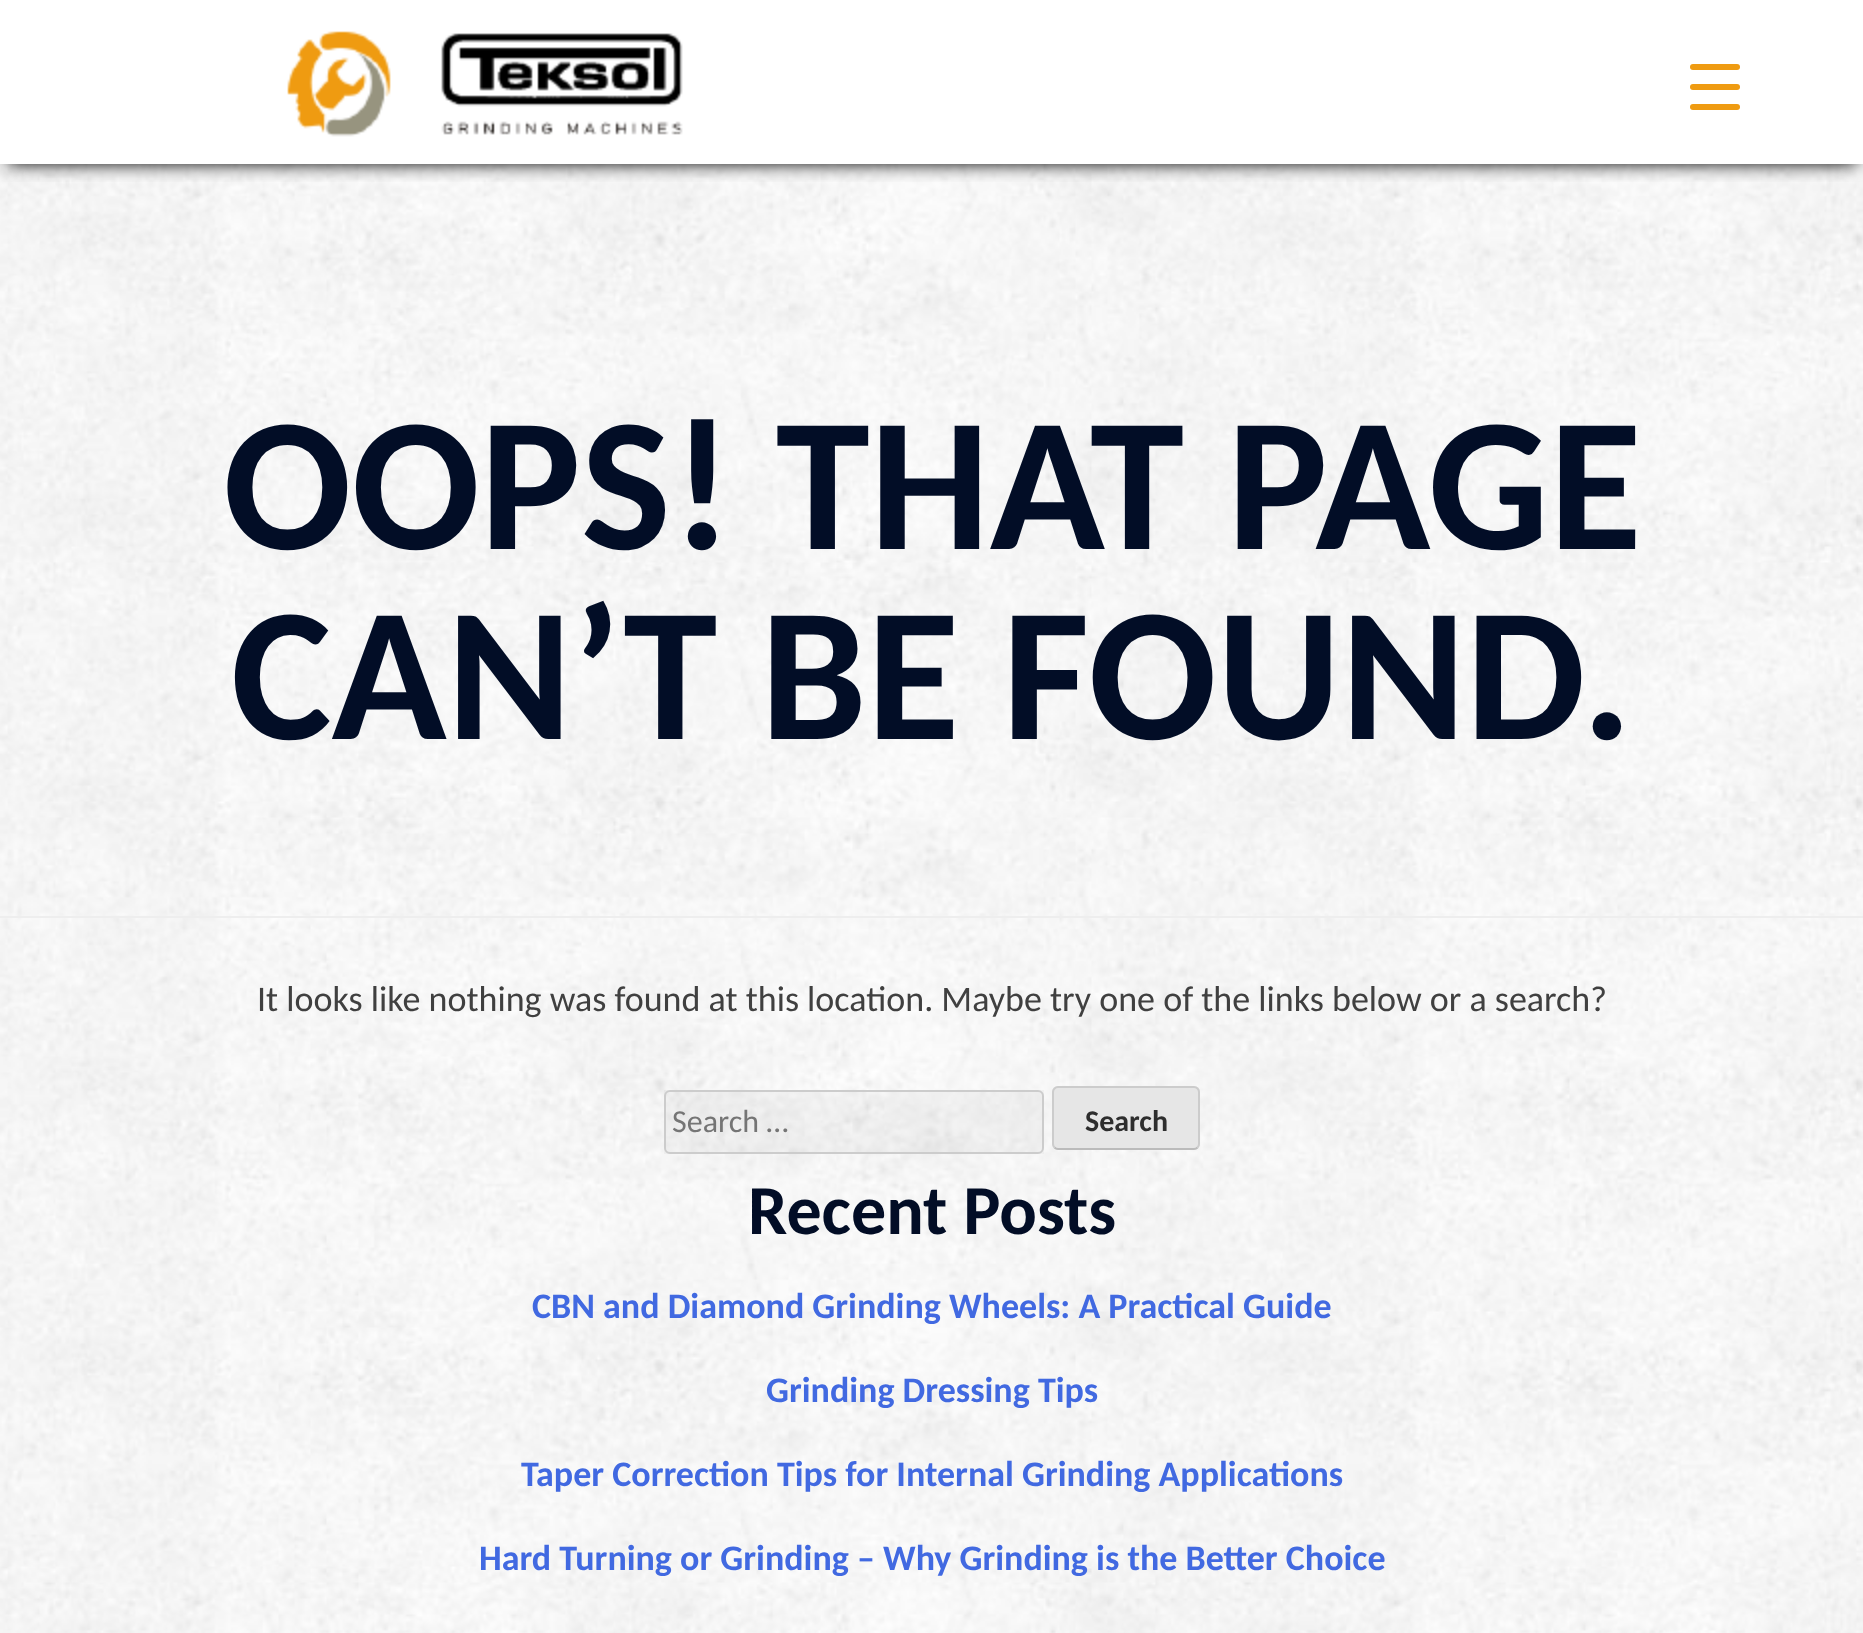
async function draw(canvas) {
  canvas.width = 1863;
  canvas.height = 1633;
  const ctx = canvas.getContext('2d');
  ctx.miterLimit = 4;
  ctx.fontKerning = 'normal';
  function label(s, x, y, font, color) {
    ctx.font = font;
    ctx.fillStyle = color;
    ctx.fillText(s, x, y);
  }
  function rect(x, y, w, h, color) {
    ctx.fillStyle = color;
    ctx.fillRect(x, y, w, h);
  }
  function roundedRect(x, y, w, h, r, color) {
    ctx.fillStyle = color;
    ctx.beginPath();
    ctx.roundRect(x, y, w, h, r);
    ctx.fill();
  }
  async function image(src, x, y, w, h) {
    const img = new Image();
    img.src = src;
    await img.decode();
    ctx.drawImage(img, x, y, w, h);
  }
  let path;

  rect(0, 0, 1863, 1633, '#fff');
  await image('assets/img2.png', 0, 164, 1863, 1469);
  ctx.save();
  ctx.beginPath();
  ctx.rect(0, 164, 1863, 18);
  ctx.clip();
  ctx.fillStyle = '#000';
  ctx.filter = 'blur(9px)';
  ctx.beginPath();
  ctx.rect(8, 16, 1848, 148);
  ctx.fill();
  ctx.filter = 'none';
  ctx.restore();
  roundedRect(1690, 84, 50, 6, 3, '#ef9b11');
  roundedRect(1690, 64, 50, 6, 3, '#ef9b11');
  roundedRect(1690, 104, 50, 6, 3, '#ef9b11');
  await image('assets/img1.png', 287, 31, 396, 106);
  rect(0, 916, 1863, 2, '#eee');
  label('OOPS! THAT PAGE', 223, 549, 'bold 190px Carlito', '#020d26');
  label('CAN’T BE FOUND.', 231, 739, 'bold 190px Carlito', '#020d26');
  label('It looks like nothing was found at this location. Maybe try one of the links below or a search?', 257, 1011, '36px Carlito', '#404040');
  rect(664, 1090, 380, 64, '#00000008');
  ctx.beginPath();
  ctx.roundRect(665, 1091, 378, 62, 5);
  ctx.strokeStyle = '#ccc';
  ctx.lineWidth = 2;
  ctx.stroke();
  label('Search …', 672, 1132, '32px Carlito', '#757575');
  roundedRect(1052, 1086, 148, 64, 6, '#e6e6e6');
  path = new Path2D('M1197.5 1147.5C1196.5 1148.5 1195.5 1149 1194 1149H1058C1056.5 1149 1055.5 1148.5 1054.5 1147.5');
  ctx.strokeStyle = '#bbb';
  ctx.stroke(path);
  path = new Path2D('M1054.5 1147.5C1053.5 1146.5 1053 1145.5 1053 1144V1092C1053 1090.5 1053.5 1089.5 1054.5 1088.5C1055.5 1087.5 1056.5 1087 1058 1087H1194C1195.5 1087 1196.5 1087.5 1197.5 1088.5C1198.5 1089.5 1199 1090.5 1199 1092V1144C1199 1145.5 1198.5 1146.5 1197.5 1147.5');
  ctx.strokeStyle = '#ccc';
  ctx.stroke(path);
  label('Search', 1085, 1131, 'bold 30px Carlito', '#2e2e2e');
  label('Recent Posts', 748, 1234, 'bold 70px Carlito', '#020d26');
  label('CBN and Diamond Grinding Wheels: A Practical Guide', 532, 1318, 'bold 36px Carlito', '#4169e1');
  label('Grinding Dressing Tips', 766, 1402, 'bold 36px Carlito', '#4169e1');
  label('Taper Correction Tips for Internal Grinding Applications', 521, 1486, 'bold 36px Carlito', '#4169e1');
  label('Hard Turning or Grinding – Why Grinding is the Better Choice', 479, 1570, 'bold 36px Carlito', '#4169e1');
}

draw(document.querySelector('canvas'));
